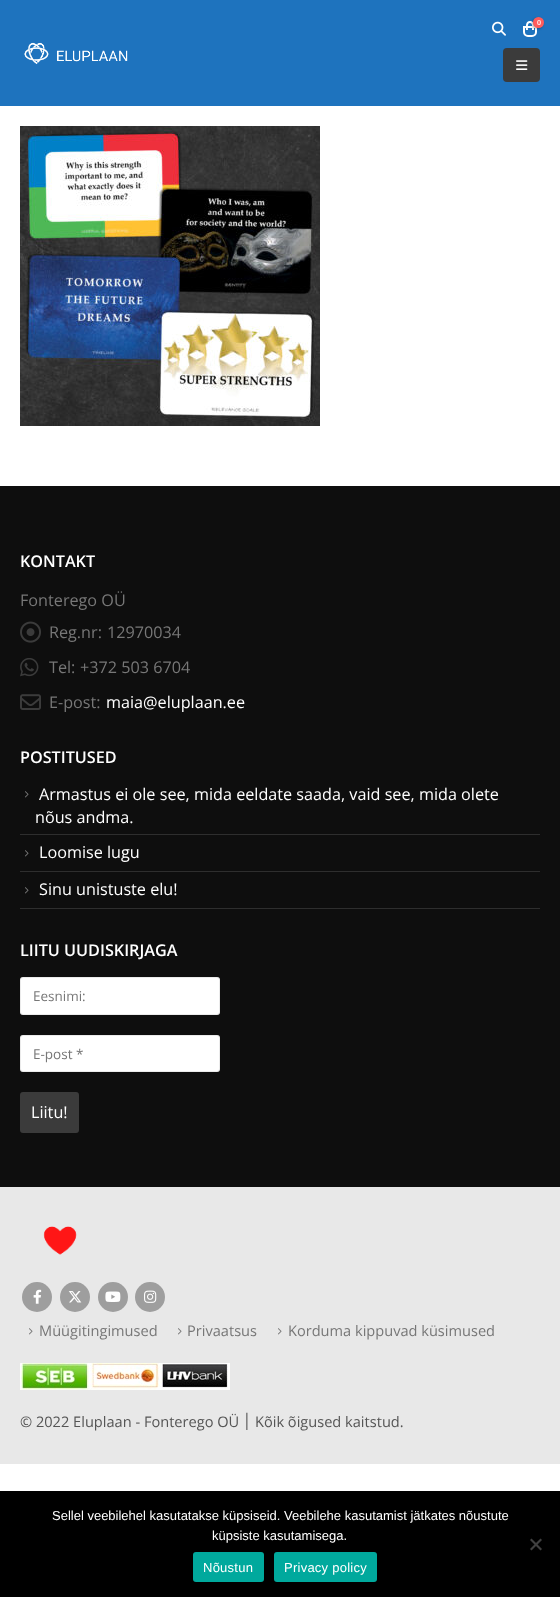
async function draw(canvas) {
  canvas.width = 560;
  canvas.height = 1597;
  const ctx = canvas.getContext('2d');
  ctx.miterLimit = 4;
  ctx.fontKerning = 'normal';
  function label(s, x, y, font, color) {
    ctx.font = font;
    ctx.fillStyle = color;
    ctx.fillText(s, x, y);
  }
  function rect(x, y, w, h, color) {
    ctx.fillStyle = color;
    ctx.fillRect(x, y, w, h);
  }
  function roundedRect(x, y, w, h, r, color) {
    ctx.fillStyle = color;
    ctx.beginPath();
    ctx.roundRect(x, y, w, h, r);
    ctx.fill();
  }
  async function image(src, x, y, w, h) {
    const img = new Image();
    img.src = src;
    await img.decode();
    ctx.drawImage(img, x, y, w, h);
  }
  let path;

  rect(0, 0, 560, 1597, '#fff');
  rect(0, 0, 560, 106, '#1e73be');
  await image('assets/img1.png', 492, 21, 14, 15);
  ctx.beginPath();
  ctx.roundRect(524, 27, 12, 9, [0, 0, 4, 4]);
  ctx.strokeStyle = '#fff';
  ctx.lineWidth = 2;
  ctx.stroke();
  ctx.fillStyle = '#fff';
  path = new Path2D('M530 21C535 21 534 27 534 30H526C526 27 525 21 530 21ZM530 23C533 23 532 28 532 30H528C528 28 527 23 530 23Z');
  ctx.fill(path, 'evenodd');
  ctx.fillStyle = '#0000004d';
  ctx.filter = 'blur(1px)';
  ctx.beginPath();
  ctx.roundRect(532, 18, 11, 11, 5.5);
  ctx.fill();
  ctx.filter = 'none';
  ctx.fillStyle = '#ff5b5b';
  ctx.beginPath();
  ctx.arc(538.5, 22.5, 5.5, 0, 2 * Math.PI);
  ctx.fill();
  label('0', 537, 25, '600 7px Open Sans', '#fff');
  roundedRect(503, 48, 37, 34, 4, '#3b3b3b');
  await image('assets/img2.png', 516, 60, 12, 10);
  await image('assets/img3.png', 24, 42, 104, 22);
  await image('assets/img4.png', 20, 126, 300, 300);
  rect(0, 486, 560, 701, '#0e0e0e');
  label('KONTAKT', 20, 567, '600 16.2px Open Sans', '#fff');
  label('Fonterego OÜ', 20, 606, '16.2px Open Sans', '#777');
  await image('assets/img5.png', 20, 621, 21, 22);
  label('Reg.nr:', 49, 638, '16.2px Open Sans', '#777');
  label('12970034', 107, 638, '16.2px Open Sans', '#777');
  await image('assets/img6.png', 20, 658, 19, 19);
  label('Tel:', 49, 673, '16.2px Open Sans', '#777');
  label('+372 503 6704', 80, 673, '16.2px Open Sans', '#777');
  await image('assets/img7.png', 20, 694, 21, 16);
  label('E-post:', 49, 708, '16.2px Open Sans', '#777');
  label('maia@eluplaan.ee', 106, 708, '16.2px Open Sans', '#fff');
  label('POSTITUSED', 20, 763, '600 16.2px Open Sans', '#fff');
  rect(20, 908, 520, 1, '#2e2e2e');
  await image('assets/img8.png', 25, 791, 4, 7);
  label('Armastus ei ole see, mida eeldate saada, vaid see, mida olete', 39, 800, '16.2px Open Sans', '#fff');
  label('nõus andma.', 35, 823, '16.2px Open Sans', '#fff');
  rect(20, 834, 520, 1, '#2e2e2e');
  await image('assets/img8.png', 25, 850, 4, 7);
  label('Loomise lugu', 39, 858, '16.2px Open Sans', '#fff');
  rect(20, 871, 520, 1, '#2e2e2e');
  await image('assets/img8.png', 25, 887, 4, 7);
  label('Sinu unistuste elu!', 39, 895, '16.2px Open Sans', '#fff');
  label('LIITU UUDISKIRJAGA', 20, 956, '600 16.2px Open Sans', '#fff');
  roundedRect(20, 977, 200, 38, 3, '#fff');
  ctx.beginPath();
  ctx.roundRect(20.5, 977.5, 199, 37, 2.5);
  ctx.strokeStyle = '#00000014';
  ctx.lineWidth = 1;
  ctx.stroke();
  label('Eesnimi:', 33, 1001, '13.5px Open Sans', '#777');
  roundedRect(20, 1035, 200, 37, 3, '#fff');
  ctx.beginPath();
  ctx.roundRect(20.5, 1035.5, 199, 36, 2.5);
  ctx.stroke();
  label('E-post *', 33, 1059, '13.5px Open Sans', '#777');
  roundedRect(20, 1092, 59, 41, 3, '#3b3b3b');
  label('Liitu!', 31, 1118, '16.2px Open Sans', '#fff');
  rect(0, 1187, 560, 277, '#e8e8e8');
  await image('assets/img9.png', 43, 1226, 34, 29);
  ctx.fillStyle = '#9e9e9e';
  ctx.beginPath();
  ctx.arc(37, 1297, 15, 0, 2 * Math.PI);
  ctx.fill();
  await image('assets/img10.png', 33, 1289, 9, 15);
  ctx.beginPath();
  ctx.arc(75, 1297, 15, 0, 2 * Math.PI);
  ctx.fill();
  await image('assets/img11.png', 68, 1291, 14, 12);
  ctx.beginPath();
  ctx.arc(113, 1297, 15, 0, 2 * Math.PI);
  ctx.fill();
  await image('assets/img12.png', 105, 1291, 16, 11);
  ctx.beginPath();
  ctx.arc(150, 1297, 15, 0, 2 * Math.PI);
  ctx.fill();
  await image('assets/img13.png', 144, 1290, 13, 13);
  await image('assets/img14.png', 29, 1328, 4, 7);
  label('Müügitingimused', 39, 1336, '14.6px Open Sans', '#777');
  await image('assets/img14.png', 178, 1328, 4, 7);
  label('Privaatsus', 187, 1336, '14.6px Open Sans', '#777');
  await image('assets/img14.png', 278, 1328, 4, 7);
  label('Korduma kippuvad küsimused', 288, 1336, '14.6px Open Sans', '#777');
  await image('assets/img15.png', 20, 1363, 210, 27);
  label('© 2022 Eluplaan - Fonterego OÜ', 20, 1427, '14.6px Open Sans', '#555');
  ctx.direction = 'rtl';
  label('׀', 251, 1427, '14.6px Liberation Sans', '#555');
  ctx.direction = 'ltr';
  label('Kõik õigused kaitstud.', 255, 1427, '14.6px Open Sans', '#555');
  rect(0, 1491, 560, 106, '#000');
  label('Sellel veebilehel kasutatakse küpsiseid. Veebilehe kasutamist jätkates nõustute', 52, 1520, '13px Liberation Sans', '#fff');
  label('küpsiste kasutamisega.', 212, 1540, '13px Liberation Sans', '#fff');
  ctx.fillStyle = '#404040';
  path = new Path2D('M540.5 1538.5L542 1540L531.5 1550.5L530 1549Z');
  ctx.fill(path);
  path = new Path2D('M530 1540L531.5 1538.5L542 1549L540.5 1550.5Z');
  ctx.fill(path);
  roundedRect(193, 1552, 71, 30, 3, '#00a99d');
  ctx.letterSpacing = '0.25px';
  label('Nõustun', 203, 1572, '13px Liberation Sans', '#fff');
  roundedRect(274, 1552, 103, 30, 3, '#00a99d');
  label('Privacy policy', 284, 1572, '13px Liberation Sans', '#fff');
}

draw(document.querySelector('canvas'));
